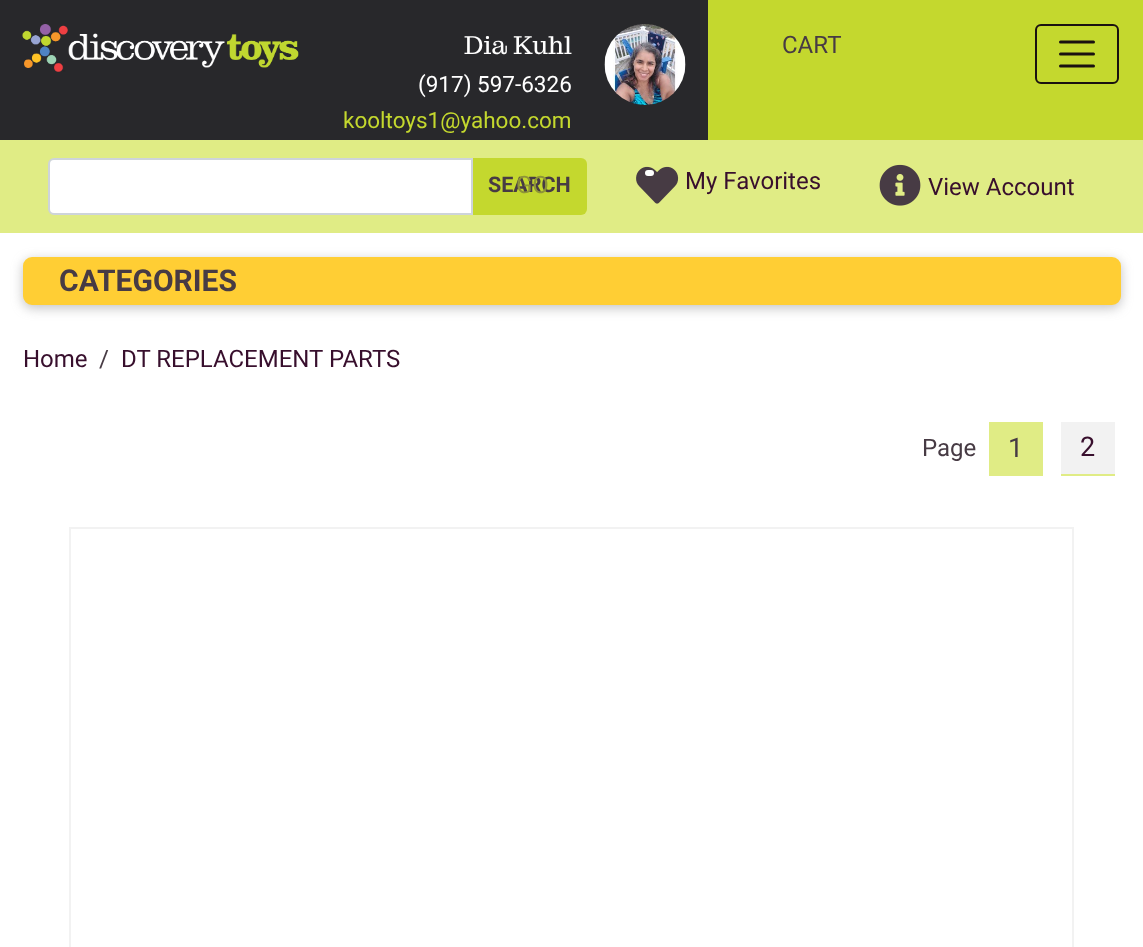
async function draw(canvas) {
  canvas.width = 1143;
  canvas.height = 947;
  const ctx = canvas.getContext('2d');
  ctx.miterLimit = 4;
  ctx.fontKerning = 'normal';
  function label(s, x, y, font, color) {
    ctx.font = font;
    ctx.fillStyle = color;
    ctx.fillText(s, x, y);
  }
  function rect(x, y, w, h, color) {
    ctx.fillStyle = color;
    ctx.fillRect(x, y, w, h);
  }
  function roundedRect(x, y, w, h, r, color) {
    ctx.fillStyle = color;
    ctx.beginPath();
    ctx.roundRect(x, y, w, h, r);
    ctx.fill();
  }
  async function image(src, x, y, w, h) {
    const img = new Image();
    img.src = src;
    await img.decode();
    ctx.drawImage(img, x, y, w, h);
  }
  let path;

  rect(0, 0, 1143, 947, '#fff');
  rect(0, 0, 708, 140, '#28282b');
  await image('assets/img1.png', 22, 24, 277, 48);
  label('Dia Kuhl', 464, 54, '26px Montagu Slab', '#fff');
  label('(917) 597-6326', 418, 92, '22.5px Roboto', '#fff');
  label('kooltoys1@yahoo.com', 343, 128, '22.5px Roboto', '#c4d82e');
  await image('assets/img2.png', 604, 24, 82, 81);
  rect(708, 0, 435, 140, '#c4d82e');
  label('CART', 782, 53, '24px Roboto', '#473b44');
  ctx.beginPath();
  ctx.roundRect(1036, 25, 82, 58, 5);
  ctx.strokeStyle = '#1a1110';
  ctx.lineWidth = 2;
  ctx.stroke();
  path = new Path2D('M1060.5 42H1093.5M1060.5 54H1093.5M1060.5 66H1093.5');
  ctx.lineWidth = 3;
  ctx.lineCap = 'round';
  ctx.stroke(path);
  rect(0, 140, 1143, 93, '#e0ec85');
  ctx.fillStyle = '#fff';
  ctx.beginPath();
  ctx.roundRect(49, 159, 423, 55, [5, 0, 0, 5]);
  ctx.fill();
  ctx.strokeStyle = '#ced4da';
  ctx.lineWidth = 2;
  ctx.stroke();
  ctx.fillStyle = '#c4d82e';
  ctx.beginPath();
  ctx.roundRect(473, 158, 114, 57, [0, 6, 6, 0]);
  ctx.fill();
  label('SEARCH', 488, 192, 'bold 21.5px Roboto', '#473b44');
  label('GO', 516, 193, '24px Roboto', '#8e9438');
  await image('assets/img3.png', 636, 166, 43, 38);
  roundedRect(645, 170, 9, 6, 3, '#fff');
  label('My Favorites', 685, 189, '24px Roboto', '#380f2d');
  await image('assets/img4.png', 879, 164, 42, 42);
  label('View Account', 928, 195, '24px Roboto', '#380f2d');
  ctx.fillStyle = '#7e7e8078';
  ctx.filter = 'blur(6px)';
  ctx.beginPath();
  ctx.roundRect(23, 260, 1098, 48, 9);
  ctx.fill();
  ctx.filter = 'none';
  ctx.fillStyle = '#ffce34';
  ctx.beginPath();
  ctx.roundRect(24.5, 258.5, 1095, 45, 7.5);
  ctx.fill();
  ctx.strokeStyle = '#ffce34';
  ctx.lineWidth = 3;
  ctx.stroke();
  label('CATEGORIES', 59, 291, 'bold 30px Roboto', '#473b44');
  label('Home', 23, 367, '24px Roboto', '#380f2d');
  label('/', 99, 367, '24px Roboto', '#473b44');
  label('DT REPLACEMENT PARTS', 121, 367, '24px Roboto', '#380f2d');
  label('Page', 922, 456, '24px Roboto', '#473b44');
  rect(989, 422, 54, 54, '#e0ec85');
  label('1', 1008, 457, '27px Roboto', '#473b44');
  rect(1061, 422, 54, 52, '#f2f2f2');
  rect(1061, 474, 54, 2, '#e0ec85');
  label('2', 1080, 456, '27px Roboto', '#380f2d');
  ctx.strokeStyle = '#f2f2f2';
  ctx.lineWidth = 2;
  ctx.strokeRect(70, 528, 1003, 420);
}

draw(document.querySelector('canvas'));
